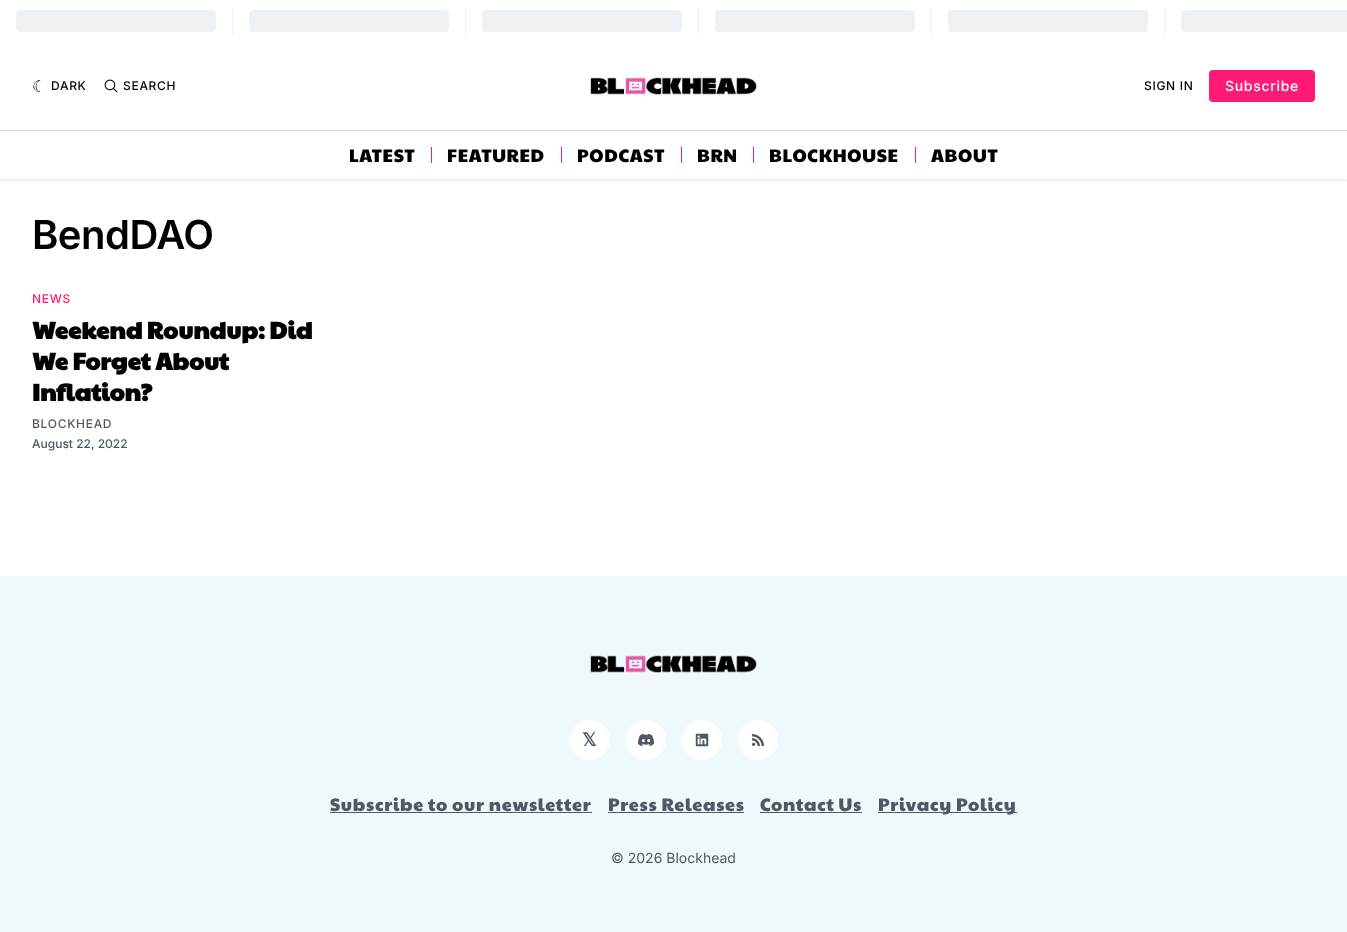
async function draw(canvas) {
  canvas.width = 1347;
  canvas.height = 932;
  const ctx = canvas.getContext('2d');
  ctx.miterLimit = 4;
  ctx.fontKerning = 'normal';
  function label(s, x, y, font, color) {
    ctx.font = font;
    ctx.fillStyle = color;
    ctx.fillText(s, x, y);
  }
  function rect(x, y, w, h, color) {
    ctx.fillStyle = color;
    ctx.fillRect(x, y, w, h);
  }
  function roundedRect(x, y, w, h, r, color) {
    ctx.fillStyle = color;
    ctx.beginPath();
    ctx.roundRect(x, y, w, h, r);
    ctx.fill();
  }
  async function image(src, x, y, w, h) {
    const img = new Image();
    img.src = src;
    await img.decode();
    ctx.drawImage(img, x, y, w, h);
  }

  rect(0, 0, 1347, 932, '#fff');
  ctx.save();
  ctx.beginPath();
  ctx.rect(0, 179, 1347, 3);
  ctx.clip();
  ctx.fillStyle = '#00000014';
  ctx.filter = 'blur(2px)';
  ctx.beginPath();
  ctx.rect(-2, 40, 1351, 141);
  ctx.fill();
  ctx.filter = 'none';
  ctx.restore();
  rect(0, 38, 1347, 4, '#fff');
  rect(232, 8, 1, 26, '#eff2f5');
  roundedRect(16, 10, 200, 22, 4, '#eff2f5');
  rect(465, 8, 1, 26, '#eff2f5');
  roundedRect(249, 10, 200, 22, 4, '#eff2f5');
  rect(698, 8, 1, 26, '#eff2f5');
  roundedRect(482, 10, 200, 22, 4, '#eff2f5');
  rect(931, 8, 1, 26, '#eff2f5');
  roundedRect(715, 10, 200, 22, 4, '#eff2f5');
  rect(1164, 8, 1, 26, '#eff2f5');
  roundedRect(948, 10, 200, 22, 4, '#eff2f5');
  ctx.beginPath();
  ctx.roundRect(1181, 10, 166, 22, [4, 0, 0, 4]);
  ctx.fill();
  rect(0, 130, 1347, 1, '#d9d9d9');
  ctx.letterSpacing = '0.7px';
  label('☾', 32, 92, '16px DejaVu Sans', '#000');
  label('DARK', 51, 90, '500 12px Inter', '#000');
  await image('assets/img1.png', 104, 79, 14, 14);
  label('SEARCH', 123, 90, '500 12px Inter', '#000');
  await image('assets/img2.png', 590, 77, 167, 18);
  label('SIGN IN', 1144, 90, '500 12px Inter', '#000');
  roundedRect(1209, 70, 106, 32, 4, '#ff1a75');
  label('Subscribe', 1225, 91, '500 14px Inter', '#fff');
  label('LATEST', 349, 162, '18px Paytone One', '#000');
  rect(431, 147, 1, 16, '#ff1a75');
  label('FEATURED', 447, 162, '18px Paytone One', '#000');
  rect(561, 147, 1, 16, '#ff1a75');
  label('PODCAST', 577, 162, '18px Paytone One', '#000');
  rect(681, 147, 1, 16, '#ff1a75');
  label('BRN', 697, 162, '18px Paytone One', '#000');
  rect(753, 147, 1, 16, '#ff1a75');
  label('BLOCKHOUSE', 769, 162, '18px Paytone One', '#000');
  rect(915, 147, 1, 16, '#ff1a75');
  label('ABOUT', 931, 162, '18px Paytone One', '#000');
  ctx.letterSpacing = '-0.5px';
  label('BendDAO', 32, 249, '600 40px Inter', '#000');
  ctx.letterSpacing = '0.7px';
  label('NEWS', 32, 303, '500 12px Inter', '#ff1a75');
  ctx.letterSpacing = '0px';
  label('Weekend Roundup: Did', 32, 339, 'bold 24px Paytone One', '#000');
  label('We Forget About', 32, 370, 'bold 24px Paytone One', '#000');
  label('Inflation?', 32, 401, 'bold 24px Paytone One', '#000');
  ctx.letterSpacing = '0.7px';
  label('BLOCKHEAD', 32, 428, '500 12px Inter', '#4e5965');
  ctx.letterSpacing = '0px';
  label('August 22, 2022', 32, 448, '500 12px Inter', '#4e5965');
  rect(0, 576, 1347, 356, '#eff8fa');
  await image('assets/img3.png', 590, 655, 167, 18);
  ctx.fillStyle = '#fff';
  ctx.beginPath();
  ctx.arc(590, 740, 20, 0, 2 * Math.PI);
  ctx.fill();
  label('𝕏', 582, 746, 'bold 18px DejaVu Sans', '#4e5965');
  ctx.fillStyle = '#fff';
  ctx.beginPath();
  ctx.arc(646, 740, 20, 0, 2 * Math.PI);
  ctx.fill();
  await image('assets/img4.png', 638, 733, 16, 13);
  ctx.beginPath();
  ctx.arc(702, 740, 20, 0, 2 * Math.PI);
  ctx.fill();
  await image('assets/img5.png', 695, 733, 14, 14);
  ctx.beginPath();
  ctx.arc(758, 740, 20, 0, 2 * Math.PI);
  ctx.fill();
  await image('assets/img6.png', 752, 734, 12, 12);
  ctx.letterSpacing = '0.7px';
  label('Subscribe to our newsletter', 330, 811, '18px Paytone One', '#4e5965');
  rect(330, 812, 262, 1, '#4e5965');
  label('Press Releases', 608, 811, '18px Paytone One', '#4e5965');
  rect(608, 812, 136, 1, '#4e5965');
  label('Contact Us', 760, 811, '18px Paytone One', '#4e5965');
  rect(760, 812, 102, 1, '#4e5965');
  rect(878, 812, 139, 1, '#4e5965');
  label('Privacy Policy', 878, 811, '18px Paytone One', '#4e5965');
  ctx.letterSpacing = '0px';
  label('© 2026 Blockhead', 611, 863, '14px Inter', '#4e5965');
}

draw(document.querySelector('canvas'));
